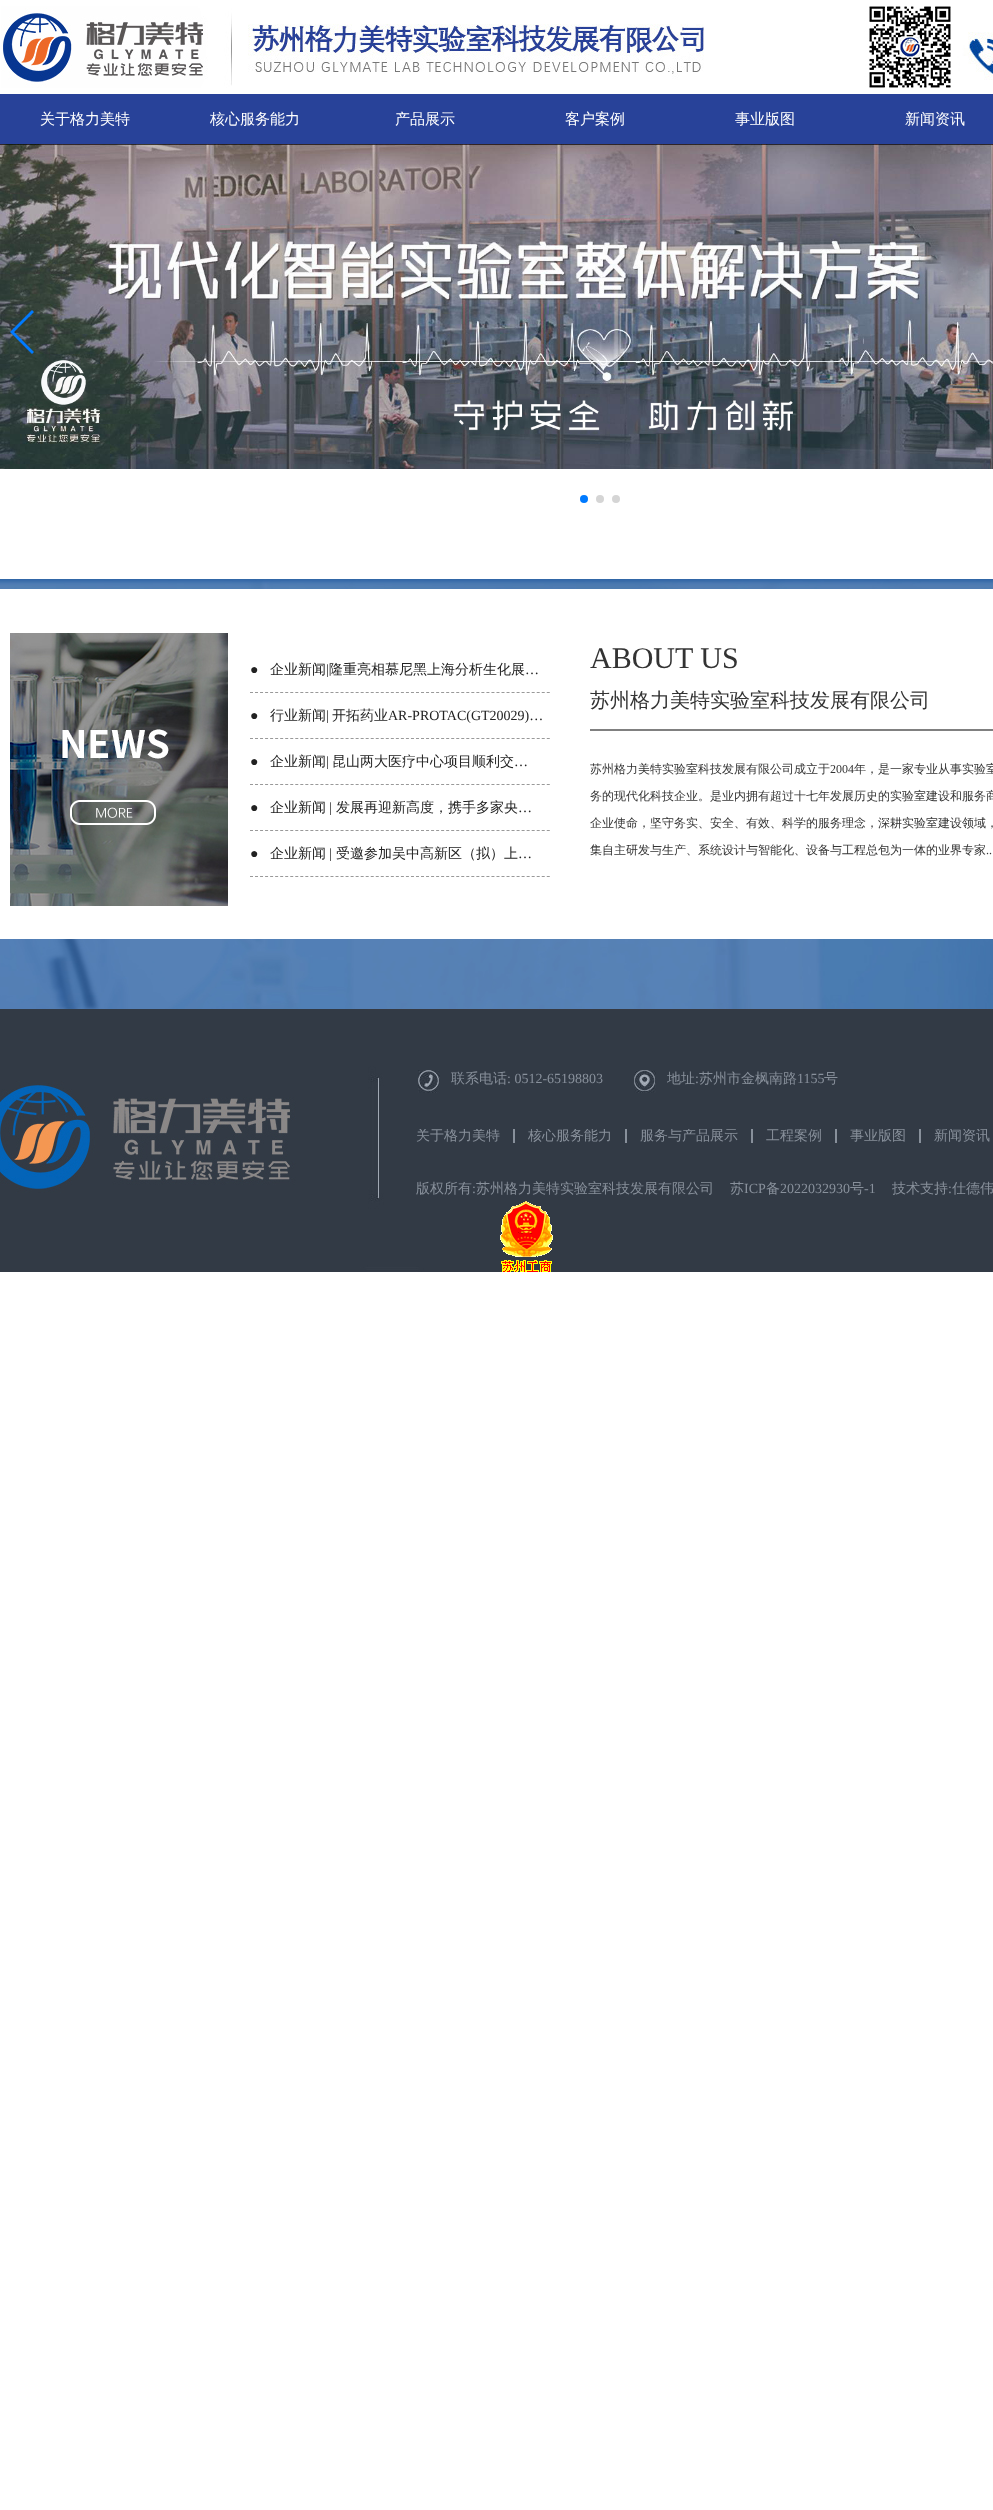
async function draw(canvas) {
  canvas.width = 993;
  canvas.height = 2510;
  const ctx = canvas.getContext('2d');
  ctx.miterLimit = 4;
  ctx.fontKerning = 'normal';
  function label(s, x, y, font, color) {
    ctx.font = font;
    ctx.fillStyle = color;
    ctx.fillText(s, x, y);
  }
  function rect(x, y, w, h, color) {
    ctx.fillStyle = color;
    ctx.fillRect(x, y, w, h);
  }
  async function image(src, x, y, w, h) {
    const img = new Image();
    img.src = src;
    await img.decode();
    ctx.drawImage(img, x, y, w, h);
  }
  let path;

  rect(0, 0, 993, 2510, '#fff');
  await image('assets/img1.png', 1, 6, 992, 82);
  rect(0, 94, 993, 50, '#284299');
  label('关于格力美特', 40, 124, '500 15px WenQuanYi Zen Hei', '#fff');
  label('核心服务能力', 210, 124, '500 15px WenQuanYi Zen Hei', '#fff');
  label('产品展示', 395, 124, '500 15px WenQuanYi Zen Hei', '#fff');
  label('客户案例', 565, 124, '500 15px WenQuanYi Zen Hei', '#fff');
  label('事业版图', 735, 124, '500 15px WenQuanYi Zen Hei', '#fff');
  label('新闻资讯', 905, 124, '500 15px WenQuanYi Zen Hei', '#fff');
  await image('assets/img2.png', 0, 144, 993, 325);
  ctx.fillStyle = '#007aff';
  path = new Path2D('M10 332L32 310L34 312L14 332L34 352L32 354Z');
  ctx.fill(path);
  ctx.beginPath();
  ctx.arc(584, 499, 4, 0, 2 * Math.PI);
  ctx.fill();
  ctx.fillStyle = '#d5d5d5';
  ctx.beginPath();
  ctx.arc(600, 499, 4, 0, 2 * Math.PI);
  ctx.fill();
  ctx.beginPath();
  ctx.arc(616, 499, 4, 0, 2 * Math.PI);
  ctx.fill();
  await image('assets/img3.png', 0, 579, 993, 430);
  rect(0, 589, 993, 350, '#fff');
  await image('assets/img4.png', 10, 633, 218, 273);
  path = new Path2D('M250 692.5H550');
  ctx.strokeStyle = '#999';
  ctx.setLineDash([3, 2.03]);
  ctx.stroke(path);
  label('●', 250, 674, '14px Liberation Serif', '#222');
  label('企业新闻', 270, 674, '500 14px WenQuanYi Zen Hei', '#222');
  label('|', 326, 674, '14px Liberation Serif', '#222');
  label('隆重亮相慕尼黑上海分析生化展', 329, 674, '500 14px WenQuanYi Zen Hei', '#222');
  label('…', 525, 674, '14px Liberation Serif', '#222');
  path = new Path2D('M250 738.5H550');
  ctx.stroke(path);
  label('●', 250, 720, '14px Liberation Serif', '#222');
  label('行业新闻', 270, 720, '500 14px WenQuanYi Zen Hei', '#222');
  label('|', 326, 720, '14px Liberation Serif', '#222');
  label('开拓药业', 332, 720, '500 14px WenQuanYi Zen Hei', '#222');
  label('AR-PROTAC(GT20029)…', 388, 720, '14px Liberation Serif', '#222');
  path = new Path2D('M250 784.5H550');
  ctx.stroke(path);
  label('●', 250, 766, '14px Liberation Serif', '#222');
  label('企业新闻', 270, 766, '500 14px WenQuanYi Zen Hei', '#222');
  label('|', 326, 766, '14px Liberation Serif', '#222');
  label('昆山两大医疗中心项目顺利交', 332, 766, '500 14px WenQuanYi Zen Hei', '#222');
  label('…', 514, 766, '14px Liberation Serif', '#222');
  path = new Path2D('M250 830.5H550');
  ctx.stroke(path);
  label('●', 250, 812, '14px Liberation Serif', '#222');
  label('企业新闻', 270, 812, '500 14px WenQuanYi Zen Hei', '#222');
  label('|', 329, 812, '14px Liberation Serif', '#222');
  label('发展再迎新高度，携手多家央', 336, 812, '500 14px WenQuanYi Zen Hei', '#222');
  label('…', 518, 812, '14px Liberation Serif', '#222');
  path = new Path2D('M250 876.5H550');
  ctx.stroke(path);
  label('●', 250, 858, '14px Liberation Serif', '#222');
  label('企业新闻', 270, 858, '500 14px WenQuanYi Zen Hei', '#222');
  label('|', 329, 858, '14px Liberation Serif', '#222');
  label('受邀参加吴中高新区（拟）上', 336, 858, '500 14px WenQuanYi Zen Hei', '#222');
  label('…', 518, 858, '14px Liberation Serif', '#222');
  label('ABOUT US', 590, 668, '30px Liberation Serif', '#333');
  rect(590, 729, 403, 2, '#808080');
  label('苏州格力美特实验室科技发展有限公司', 590, 707, '500 20px WenQuanYi Zen Hei', '#333');
  label('苏州格力美特实验室科技发展有限公司成立于', 590, 773, '500 12px WenQuanYi Zen Hei', '#333');
  label('2004', 830, 773, '12px Liberation Serif', '#333');
  label('年，是一家专业从事实验室', 854, 773, '500 12px WenQuanYi Zen Hei', '#333');
  label('务的现代化科技企业。是业内拥有超过十七年发展历史的实验室建设和服务商', 590, 800, '500 12px WenQuanYi Zen Hei', '#333');
  label('企业使命，坚守务实、安全、有效、科学的服务理念，深耕实验室建设领域，', 590, 827, '500 12px WenQuanYi Zen Hei', '#333');
  label('集自主研发与生产、系统设计与智能化、设备与工程总包为一体的业界专家', 590, 854, '500 12px WenQuanYi Zen Hei', '#333');
  label('..', 986, 854, '12px Liberation Serif', '#333');
  await image('assets/img5.png', 0, 1009, 993, 263);
  await image('assets/img6.png', 418, 1070, 22, 23);
  label('联系电话', 451, 1083, '500 14px WenQuanYi Zen Hei', '#88909b');
  label(': 0512-65198803', 507, 1083, '14px Liberation Serif', '#88909b');
  await image('assets/img7.png', 634, 1070, 22, 23);
  label('地址', 667, 1083, '500 14px WenQuanYi Zen Hei', '#88909b');
  label(':', 695, 1083, '14px Liberation Serif', '#88909b');
  label('苏州市金枫南路', 699, 1083, '500 14px WenQuanYi Zen Hei', '#88909b');
  label('1155', 797, 1083, '14px Liberation Serif', '#88909b');
  label('号', 824, 1083, '500 14px WenQuanYi Zen Hei', '#88909b');
  ctx.save();
  ctx.beginPath();
  ctx.rect(387, 1129, 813, 14);
  ctx.clip();
  label('关于格力美特', 416, 1140, '500 14px WenQuanYi Zen Hei', '#88909b');
  ctx.restore();
  rect(513, 1129, 2, 14, '#88909b');
  ctx.save();
  ctx.beginPath();
  ctx.rect(387, 1129, 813, 14);
  ctx.clip();
  label('核心服务能力', 528, 1140, '500 14px WenQuanYi Zen Hei', '#88909b');
  ctx.restore();
  rect(625, 1129, 2, 14, '#88909b');
  ctx.save();
  ctx.beginPath();
  ctx.rect(387, 1129, 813, 14);
  ctx.clip();
  label('服务与产品展示', 640, 1140, '500 14px WenQuanYi Zen Hei', '#88909b');
  ctx.restore();
  rect(751, 1129, 2, 14, '#88909b');
  ctx.save();
  ctx.beginPath();
  ctx.rect(387, 1129, 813, 14);
  ctx.clip();
  label('工程案例', 766, 1140, '500 14px WenQuanYi Zen Hei', '#88909b');
  ctx.restore();
  rect(835, 1129, 2, 14, '#88909b');
  ctx.save();
  ctx.beginPath();
  ctx.rect(387, 1129, 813, 14);
  ctx.clip();
  label('事业版图', 850, 1140, '500 14px WenQuanYi Zen Hei', '#88909b');
  ctx.restore();
  rect(919, 1129, 2, 14, '#88909b');
  ctx.save();
  ctx.beginPath();
  ctx.rect(387, 1129, 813, 14);
  ctx.clip();
  label('新闻资讯', 934, 1140, '500 14px WenQuanYi Zen Hei', '#88909b');
  ctx.restore();
  label('版权所有', 416, 1193, '500 14px WenQuanYi Zen Hei', '#88909b');
  label(':', 472, 1193, '14px Liberation Serif', '#88909b');
  label('苏州格力美特实验室科技发展有限公司', 476, 1193, '500 14px WenQuanYi Zen Hei', '#88909b');
  label('苏', 730, 1193, '500 14px WenQuanYi Zen Hei', '#88909b');
  label('ICP', 744, 1193, '14px Liberation Serif', '#88909b');
  label('备', 766, 1193, '500 14px WenQuanYi Zen Hei', '#88909b');
  label('2022032930', 780, 1193, '14px Liberation Serif', '#88909b');
  label('号', 850, 1193, '500 14px WenQuanYi Zen Hei', '#88909b');
  label('-1', 864, 1193, '14px Liberation Serif', '#88909b');
  label('技术支持', 892, 1193, '500 14px WenQuanYi Zen Hei', '#88909b');
  label(':', 948, 1193, '14px Liberation Serif', '#88909b');
  label('仕德伟', 952, 1193, '500 14px WenQuanYi Zen Hei', '#88909b');
  await image('assets/img8.png', 500, 1201, 53, 71);
}

draw(document.querySelector('canvas'));
